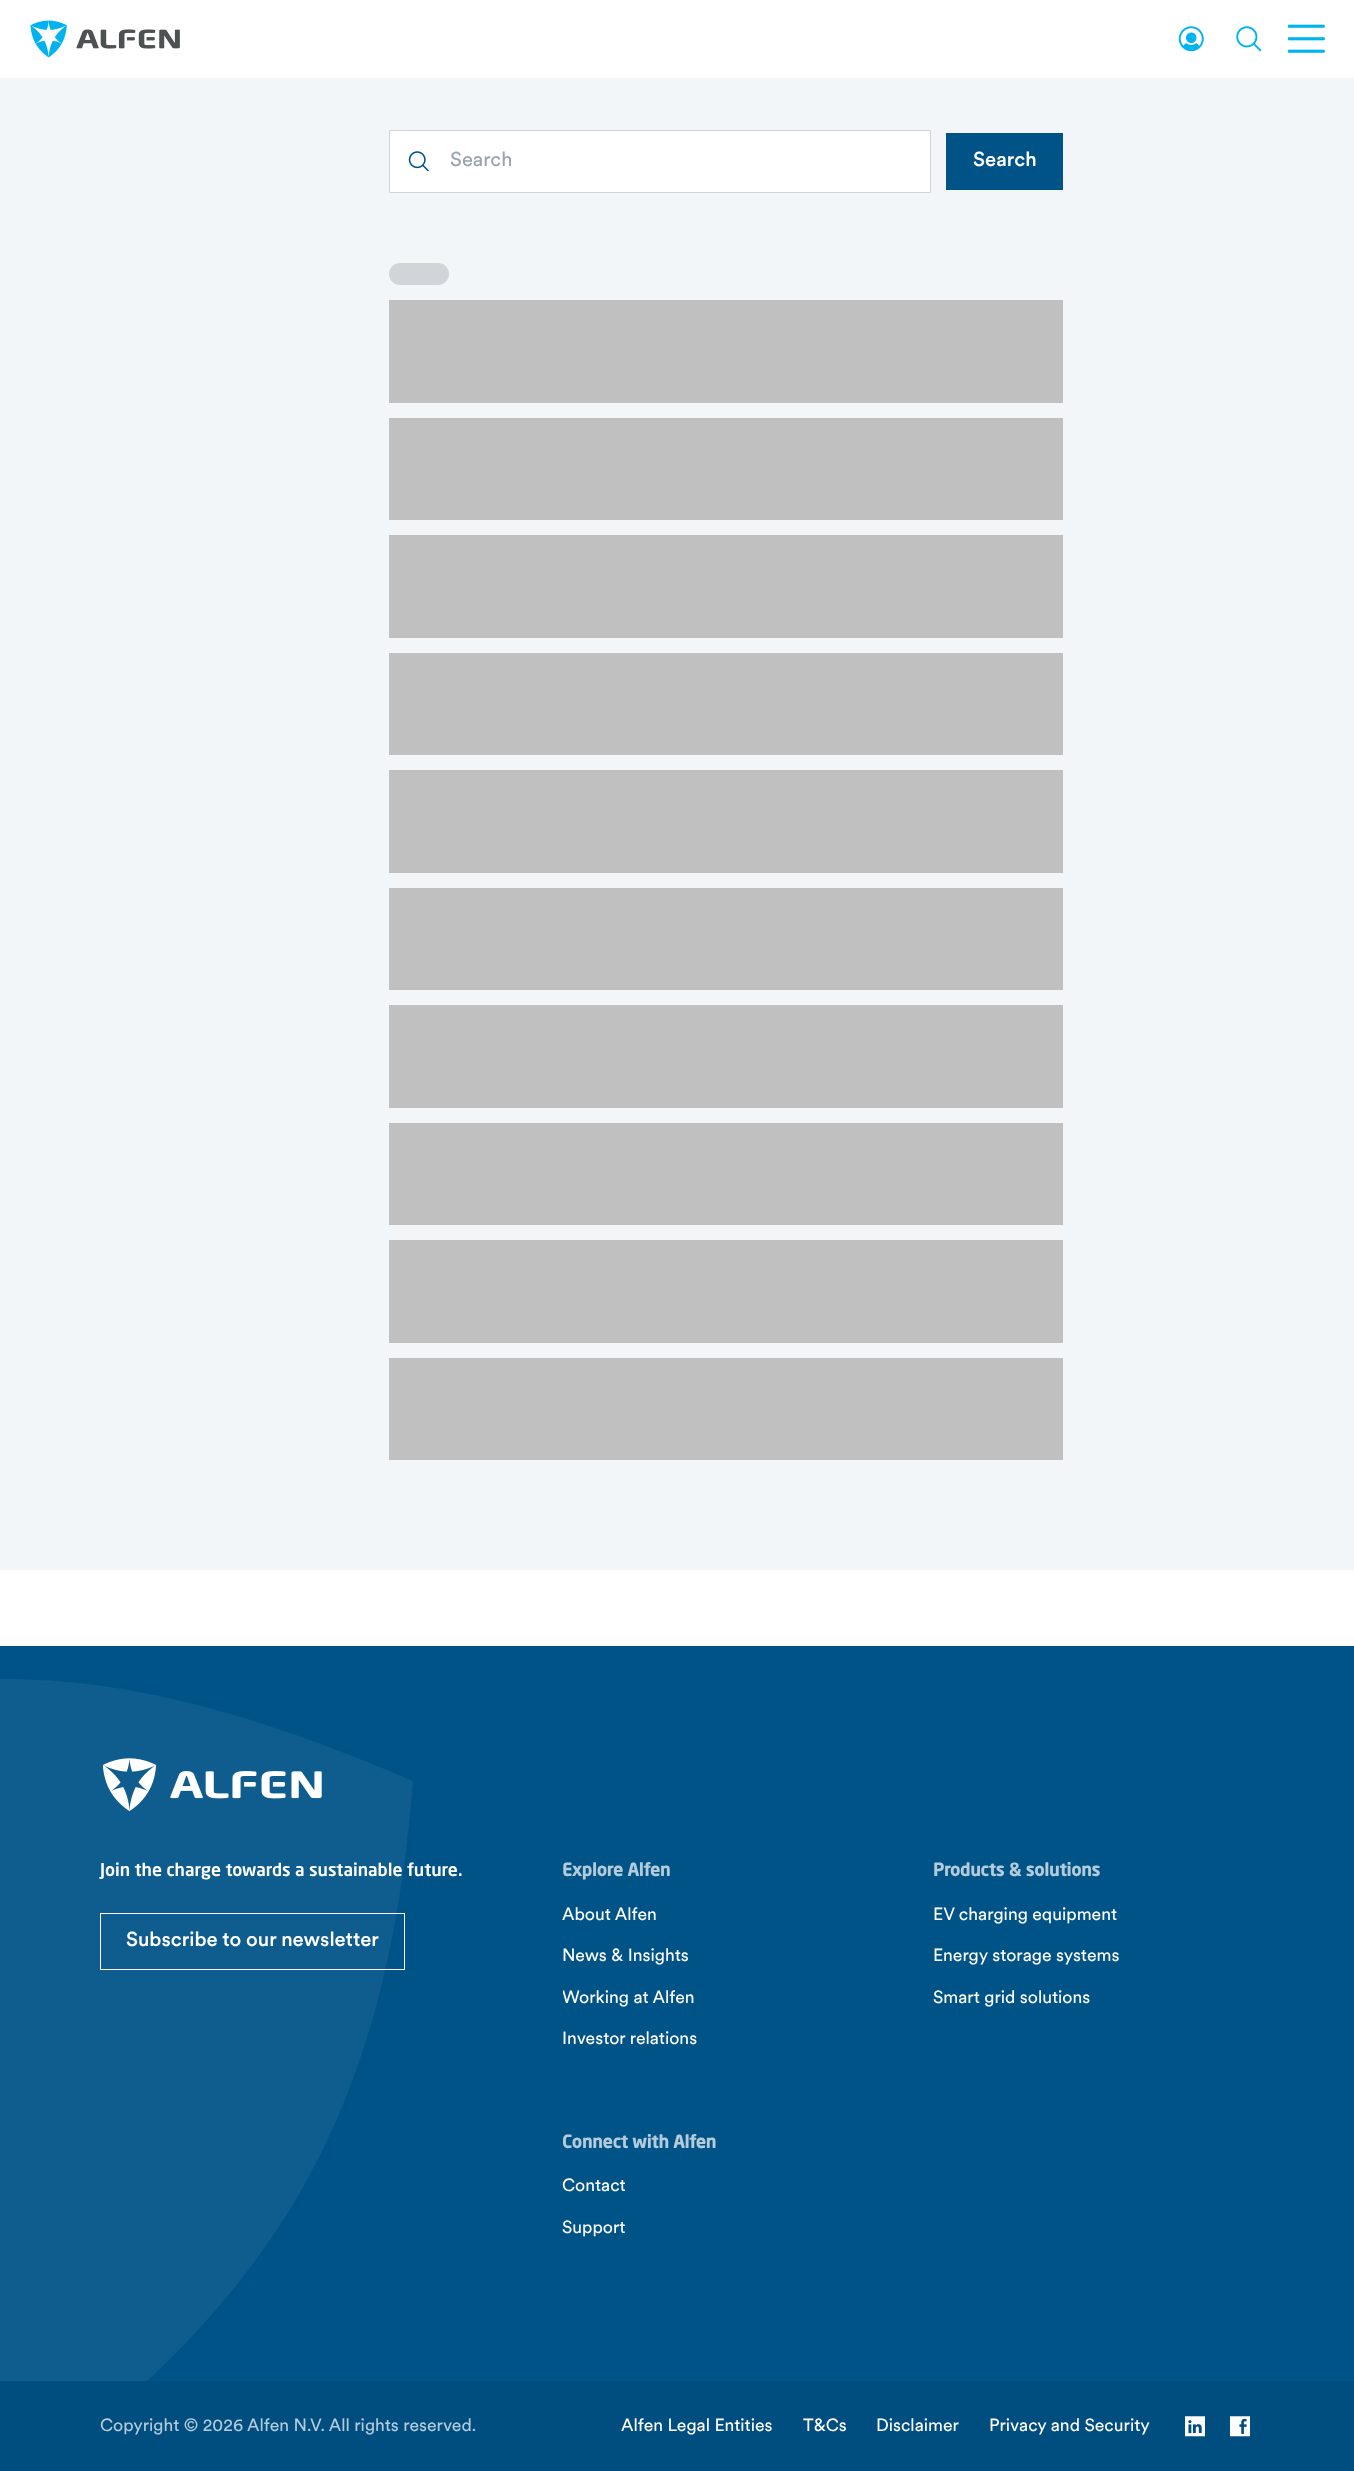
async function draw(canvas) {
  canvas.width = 1354;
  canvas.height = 2471;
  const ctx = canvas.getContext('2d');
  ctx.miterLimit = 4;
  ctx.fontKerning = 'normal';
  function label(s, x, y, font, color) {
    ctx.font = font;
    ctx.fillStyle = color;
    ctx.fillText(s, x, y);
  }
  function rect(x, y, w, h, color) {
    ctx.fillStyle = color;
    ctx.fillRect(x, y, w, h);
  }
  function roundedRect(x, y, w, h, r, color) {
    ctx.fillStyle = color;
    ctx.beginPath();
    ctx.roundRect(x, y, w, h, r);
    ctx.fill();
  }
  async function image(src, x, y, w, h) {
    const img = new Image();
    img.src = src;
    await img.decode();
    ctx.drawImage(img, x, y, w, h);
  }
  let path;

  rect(0, 0, 1354, 2471, '#fff');
  await image('assets/img1.png', 30, 20, 150, 38);
  await image('assets/img2.png', 1178, 26, 26, 26);
  await image('assets/img3.png', 1236, 26, 26, 26);
  await image('assets/img4.png', 1288, 24, 37, 29);
  rect(0, 78, 1354, 1492, '#f2f6f8');
  ctx.fillStyle = '#fff';
  ctx.beginPath();
  ctx.rect(389.5, 130.5, 541, 62);
  ctx.fill();
  ctx.strokeStyle = '#d1d5da';
  ctx.stroke();
  await image('assets/img5.png', 408, 151, 21, 21);
  label('Search', 450, 166, '20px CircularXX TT', '#99a2af');
  rect(946, 133, 117, 57, '#005387');
  label('Search', 973, 166, '500 20px CircularXX TT', '#fff');
  roundedRect(389, 263, 60, 22, 11, '#d1d5da');
  rect(389, 300, 674, 103, '#c0c0c0');
  rect(389, 418, 674, 102, '#c0c0c0');
  rect(389, 535, 674, 103, '#c0c0c0');
  rect(389, 653, 674, 102, '#c0c0c0');
  rect(389, 770, 674, 103, '#c0c0c0');
  rect(389, 888, 674, 102, '#c0c0c0');
  rect(389, 1005, 674, 103, '#c0c0c0');
  rect(389, 1123, 674, 102, '#c0c0c0');
  rect(389, 1240, 674, 103, '#c0c0c0');
  rect(389, 1358, 674, 102, '#c0c0c0');
  rect(0, 1646, 1354, 735, '#005387');
  await image('assets/img6.png', 102, 1758, 220, 53);
  ctx.fillStyle = '#ffffff0f';
  path = new Path2D('M413 1781C89 1642-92 1648-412 1781C-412 1781-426 2224 3 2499C269 2305 385 2127 413 1781Z');
  ctx.fill(path);
  label('Join the charge towards a sustainable future.', 100, 1876, '500 17.5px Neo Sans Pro', '#fff');
  ctx.strokeStyle = '#fff';
  ctx.strokeRect(100.5, 1913.5, 304, 56);
  label('Subscribe to our newsletter', 126, 1946, '500 20px CircularXX TT', '#fff');
  label('Explore Alfen', 562, 1876, 'bold 17.5px Neo Sans Pro', '#b3cbdb');
  label('About Alfen', 562, 1920, '17.5px CircularXX TT', '#fff');
  label('News & Insights', 562, 1961, '17.5px CircularXX TT', '#fff');
  ctx.save();
  ctx.beginPath();
  ctx.rect(563, 1903, 321, 180);
  ctx.clip();
  label('Working at Alfen', 562, 2003, '17.5px CircularXX TT', '#fff');
  ctx.restore();
  label('Investor relations', 562, 2044, '17.5px CircularXX TT', '#fff');
  label('Products & solutions', 933, 1876, 'bold 17.5px Neo Sans Pro', '#b3cbdb');
  label('EV charging equipment', 933, 1920, '17.5px CircularXX TT', '#fff');
  label('Energy storage systems', 933, 1961, '17.5px CircularXX TT', '#fff');
  label('Smart grid solutions', 933, 2003, '17.5px CircularXX TT', '#fff');
  label('Connect with Alfen', 562, 2148, 'bold 17.5px Neo Sans Pro', '#b3cbdb');
  label('Contact', 562, 2191, '17.5px CircularXX TT', '#fff');
  label('Support', 562, 2233, '17.5px CircularXX TT', '#fff');
  rect(0, 2381, 1354, 90, '#004e7f');
  label('Copyright © 2026 Alfen N.V. All rights reserved.', 100, 2431, '17.5px CircularXX TT', '#b3cbdb');
  label('Alfen Legal Entities', 621, 2431, '17.5px CircularXX TT', '#fff');
  label('T&Cs', 803, 2431, '17.5px CircularXX TT', '#fff');
  label('Disclaimer', 876, 2431, '17.5px CircularXX TT', '#fff');
  label('Privacy and Security', 989, 2431, '17.5px CircularXX TT', '#fff');
  await image('assets/img7.png', 1185, 2416, 20, 21);
  await image('assets/img8.png', 1230, 2416, 20, 21);
}

draw(document.querySelector('canvas'));
